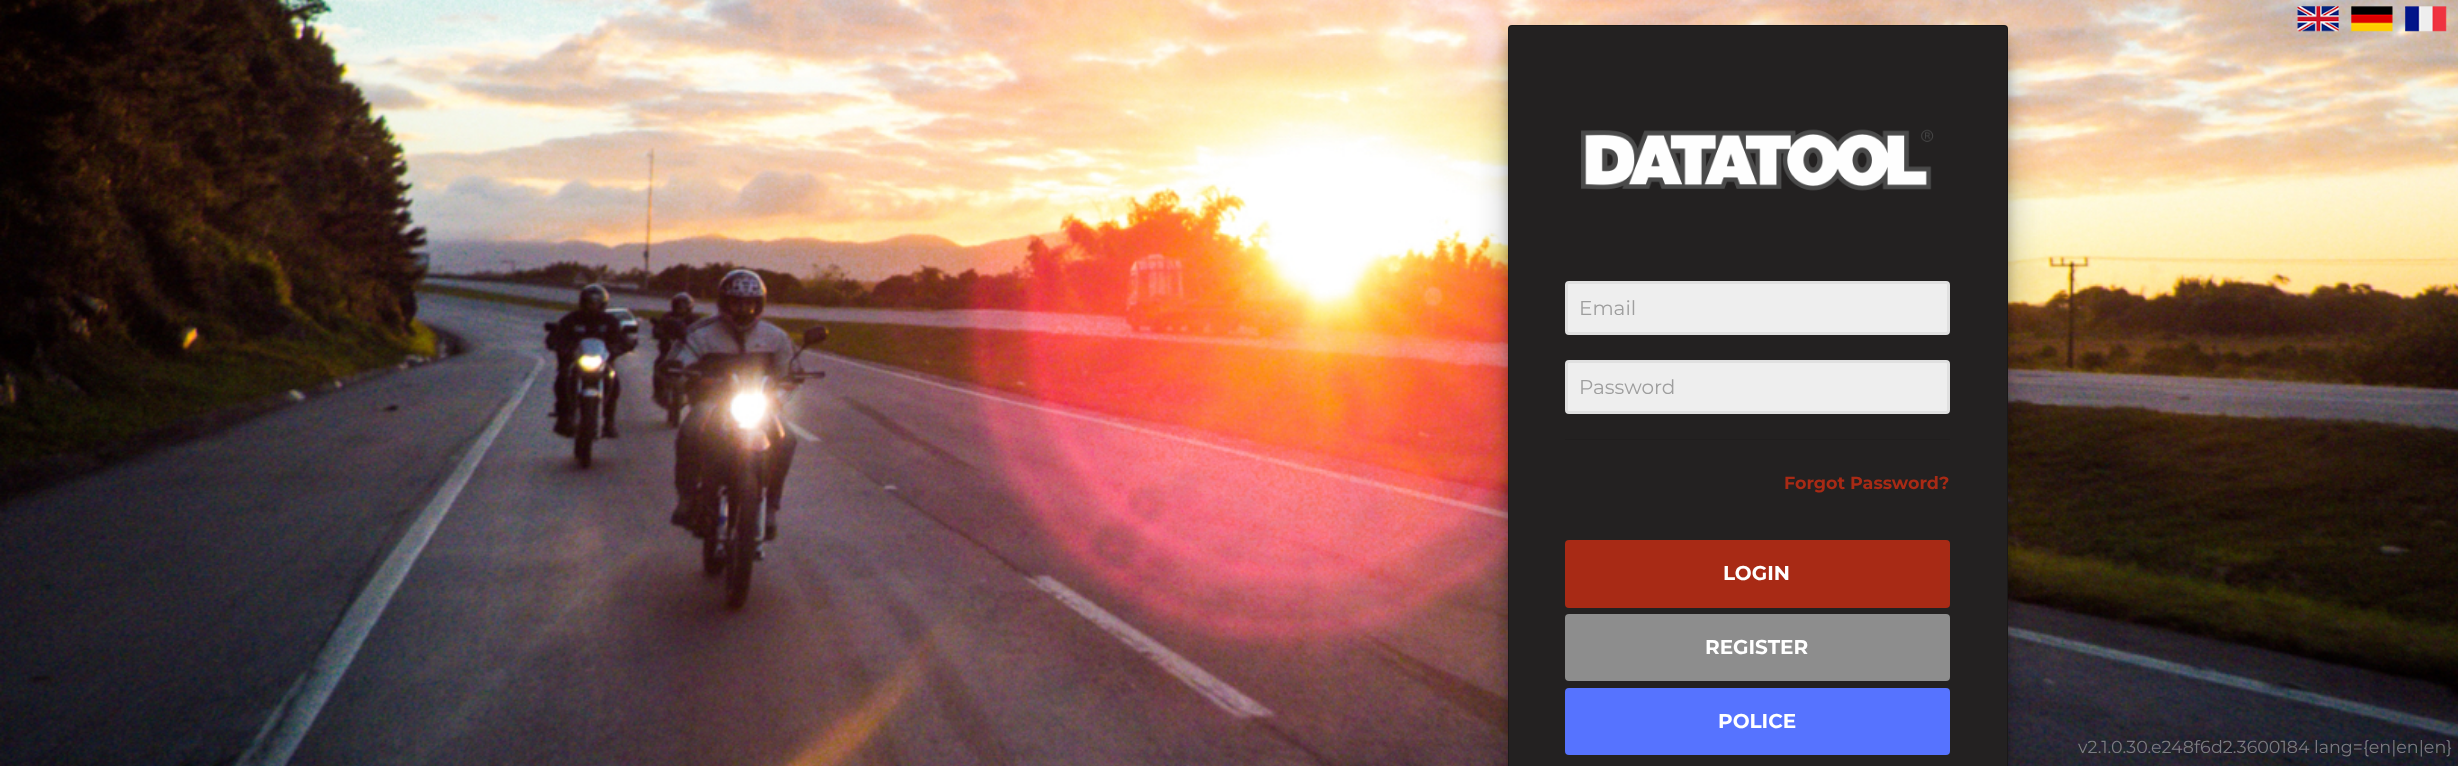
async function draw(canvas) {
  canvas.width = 2458;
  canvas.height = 766;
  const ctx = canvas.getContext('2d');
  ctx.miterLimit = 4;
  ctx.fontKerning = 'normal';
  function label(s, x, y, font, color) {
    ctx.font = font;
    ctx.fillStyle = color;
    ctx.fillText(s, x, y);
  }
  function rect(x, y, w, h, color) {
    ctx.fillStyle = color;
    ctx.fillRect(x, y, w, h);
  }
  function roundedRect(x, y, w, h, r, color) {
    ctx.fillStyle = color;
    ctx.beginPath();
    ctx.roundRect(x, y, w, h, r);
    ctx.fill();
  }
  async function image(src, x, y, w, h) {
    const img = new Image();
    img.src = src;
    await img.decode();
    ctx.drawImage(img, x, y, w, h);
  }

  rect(0, 0, 2458, 766, '#fff');
  await image('assets/img1.png', 0, 0, 2458, 766);
  await image('assets/img2.png', 2297, 6, 42, 26);
  await image('assets/img3.png', 2351, 6, 42, 26);
  await image('assets/img4.png', 2405, 6, 42, 26);
  ctx.fillStyle = '#00000038';
  ctx.filter = 'blur(6px)';
  ctx.beginPath();
  ctx.roundRect(1508, 38, 500, 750, 4);
  ctx.fill();
  ctx.filter = 'none';
  ctx.fillStyle = '#00000040';
  ctx.filter = 'blur(17.5px)';
  ctx.beginPath();
  ctx.roundRect(1508, 43, 500, 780, 4);
  ctx.fill();
  ctx.filter = 'none';
  roundedRect(1508, 25, 500, 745, 4, '#232121');
  ctx.beginPath();
  ctx.roundRect(1508.5, 25.5, 499, 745, 3.5);
  ctx.strokeStyle = '#00000040';
  ctx.stroke();
  await image('assets/img5.png', 1581, 129, 353, 62);
  ctx.fillStyle = '#eee';
  ctx.beginPath();
  ctx.roundRect(1566.5, 282.5, 382, 51, 2.5);
  ctx.fill();
  ctx.strokeStyle = '#e0e0e0';
  ctx.lineWidth = 3;
  ctx.stroke();
  label('Email', 1579, 315, '20px Montserrat', '#9e9e9e');
  ctx.fillStyle = '#eee';
  ctx.beginPath();
  ctx.roundRect(1566.5, 361.5, 382, 51, 2.5);
  ctx.fill();
  ctx.stroke();
  label('Password', 1579, 394, '20px Montserrat', '#9e9e9e');
  rect(1565, 439, 385, 1, '#201e1e');
  label('Forgot Password?', 1784, 489, 'bold 17.5px Montserrat', '#a82a15');
  roundedRect(1565, 540, 385, 68, 4, '#a82a15');
  label('LOGIN', 1723, 580, 'bold 20px Montserrat', '#fff');
  roundedRect(1565, 614, 385, 67, 4, '#8d8d8d');
  label('REGISTER', 1705, 654, 'bold 20px Montserrat', '#fff');
  roundedRect(1565, 688, 385, 67, 4, '#5673ff');
  label('POLICE', 1718, 728, 'bold 20px Montserrat', '#fff');
  label('v2.1.0.30.e248f6d2.3600184', 2078, 753, '17.5px Montserrat', '#7c7c82');
  label('lang={en|en|en}', 2314, 753, '17.5px Montserrat', '#7c7c82');
}

draw(document.querySelector('canvas'));
